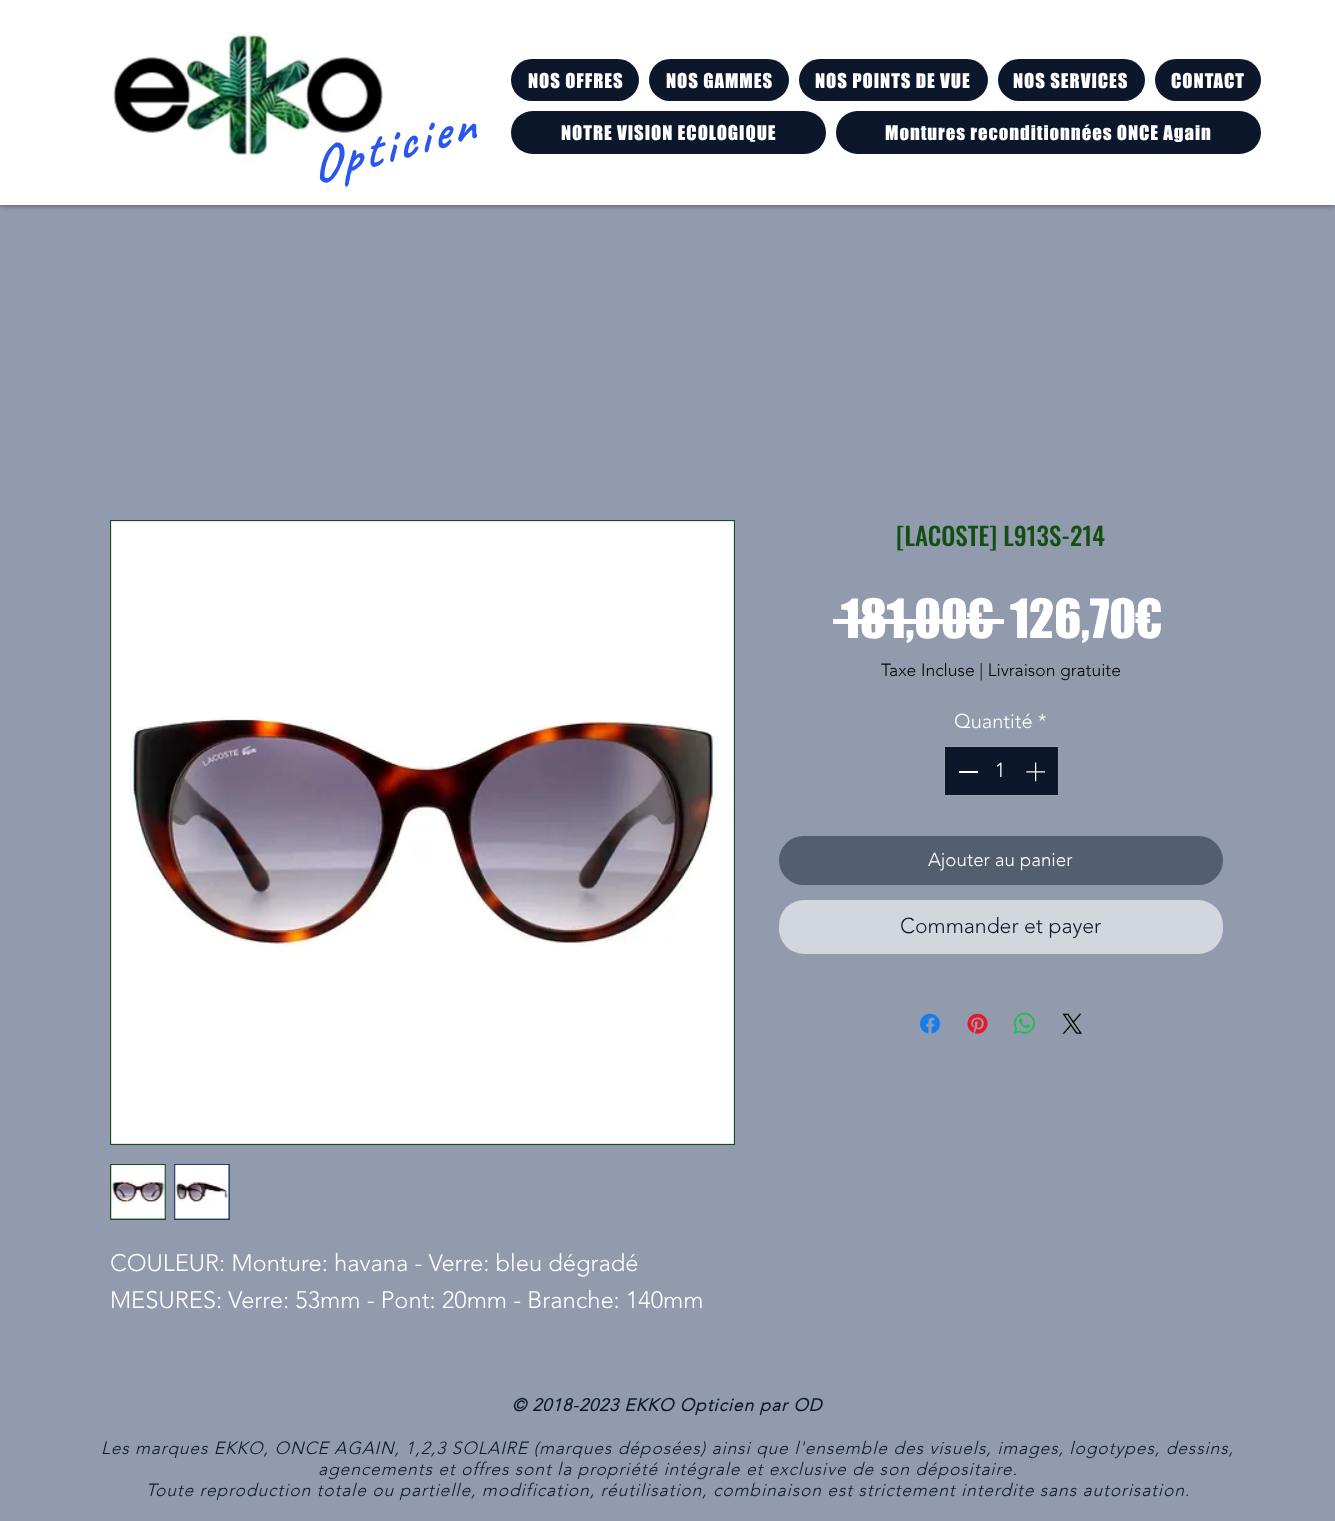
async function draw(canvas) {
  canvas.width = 1335;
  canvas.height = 1521;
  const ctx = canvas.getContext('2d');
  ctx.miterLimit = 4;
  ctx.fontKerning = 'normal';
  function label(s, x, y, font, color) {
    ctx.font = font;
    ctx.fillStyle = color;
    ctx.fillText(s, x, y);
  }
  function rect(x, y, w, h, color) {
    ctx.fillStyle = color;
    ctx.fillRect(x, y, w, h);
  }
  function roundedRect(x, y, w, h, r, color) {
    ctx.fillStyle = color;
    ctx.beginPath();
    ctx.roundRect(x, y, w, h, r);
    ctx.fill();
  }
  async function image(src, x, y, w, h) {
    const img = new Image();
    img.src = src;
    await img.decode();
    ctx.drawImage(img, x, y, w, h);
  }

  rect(0, 0, 1335, 1521, '#929bad');
  ctx.fillStyle = '#00000080';
  ctx.filter = 'blur(3px)';
  ctx.beginPath();
  ctx.rect(0, 0, 1335, 205);
  ctx.fill();
  ctx.filter = 'none';
  rect(0, 0, 1335, 205, '#fff');
  await image('assets/img1.png', 113, 32, 271, 131);
  roundedRect(511, 59, 128, 42, 21, '#0c172b');
  ctx.letterSpacing = '0.95px';
  label('NOS OFFRES', 528, 88, '18.75px "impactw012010"', '#fff');
  roundedRect(649, 59, 140, 42, 21, '#0c172b');
  label('NOS GAMMES', 666, 88, '18.75px "impactw012010"', '#fff');
  roundedRect(799, 59, 189, 42, 21, '#0c172b');
  label('NOS POINTS DE VUE', 815, 88, '18.75px "impactw012010"', '#fff');
  roundedRect(998, 59, 147, 42, 21, '#0c172b');
  label('NOS SERVICES', 1013, 88, '18.75px "impactw012010"', '#fff');
  roundedRect(1155, 59, 106, 42, 21, '#0c172b');
  label('CONTACT', 1171, 88, '18.75px "impactw012010"', '#fff');
  roundedRect(511, 111, 315, 43, 21.5, '#0c172b');
  label('NOTRE VISION ECOLOGIQUE', 561, 140, '18.75px "impactw012010"', '#fff');
  roundedRect(836, 111, 425, 43, 21.5, '#0c172b');
  label('Montures reconditionnées ONCE Again', 885, 140, '18.75px "impactw012010"', '#fff');
  ctx.letterSpacing = '4px';
  ctx.font = 'italic bold 50px Caveat';
  ctx.fillStyle = '#2957ed';
  ctx.save();
  ctx.translate(315, 183);
  ctx.rotate(-15.2 * Math.PI / 180);
  ctx.fillText('Opticien', 0, 0);
  ctx.restore();
  ctx.letterSpacing = '0px';
  label('[LACOSTE] L913S-214', 896, 546, '500 25px Oswald', '#114f13');
  label('181,00€', 841, 638, '50px "impactw012010"', '#fff');
  rect(833, 619, 171, 5, '#fff');
  label('126,70€', 1010, 638, '50px "impactw012010"', '#fff');
  label('Taxe Incluse | Livraison gratuite', 881, 676, '300 17.5px "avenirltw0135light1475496"', '#000');
  label('Quantité *', 954, 728, '300 20px "avenirltw0135light1475496"', '#fff');
  ctx.fillStyle = '#0c172b';
  ctx.beginPath();
  ctx.rect(944.5, 746.5, 114, 49);
  ctx.fill();
  ctx.strokeStyle = '#9ea2aa';
  ctx.stroke();
  rect(959, 771, 19, 2, '#fff');
  label('1', 995, 777, '300 20px "avenirltw0135light1475496"', '#fff');
  await image('assets/img2.png', 1026, 762, 19, 20);
  roundedRect(779, 836, 444, 49, 24.5, '#545e71');
  label('Ajouter au panier', 928, 866, '300 18.75px "avenirltw0135light1475496"', '#fff');
  roundedRect(779, 900, 444, 54, 25, '#d2d6dd');
  label('Commander et payer', 900, 933, '300 21.25px "avenirltw0135light1475496"', '#0c172b');
  await image('assets/img3.png', 920, 1013, 20, 21);
  await image('assets/img4.png', 967, 1013, 21, 21);
  await image('assets/img5.png', 1013, 1012, 22, 22);
  await image('assets/img6.png', 1062, 1013, 20, 21);
  ctx.strokeStyle = '#114f13';
  ctx.strokeRect(110.5, 520.5, 624, 624);
  await image('assets/img7.png', 111, 521, 623, 623);
  ctx.fillStyle = '#253b63';
  ctx.beginPath();
  ctx.rect(110.5, 1164.5, 55, 55);
  ctx.fill();
  ctx.stroke();
  await image('assets/img8.png', 111, 1165, 55, 54);
  rect(174, 1164, 56, 56, '#253b63');
  await image('assets/img9.png', 174, 1165, 56, 54);
  label('COULEUR: Monture: havana - Verre: bleu dégradé', 110, 1271, '300 23.75px "avenirltw0135light1475496"', '#fff');
  label('MESURES: Verre: 53mm - Pont: 20mm - Branche: 140mm', 110, 1308, '300 23.75px "avenirltw0135light1475496"', '#fff');
  ctx.letterSpacing = '0.88px';
  label('© 2018-2023 EKKO Opticien par OD', 512, 1411, 'italic bold 17.5px "avenirltw0135light1475496"', '#0c172b');
  label('Les marques EKKO, ONCE AGAIN, 1,2,3 SOLAIRE (marques déposées) ainsi que l\'ensemble des visuels, images, logotypes, dessins,', 101, 1454, 'italic 300 17.5px "avenirltw0135light1475496"', '#0c172b');
  label('agencements et offres sont la propriété intégrale et exclusive de son dépositaire.', 318, 1475, 'italic 300 17.5px "avenirltw0135light1475496"', '#0c172b');
  label('Toute reproduction totale ou partielle, modification, réutilisation, combinaison est strictement interdite sans autorisation.', 146, 1496, 'italic 300 17.5px "avenirltw0135light1475496"', '#0c172b');
}

draw(document.querySelector('canvas'));
